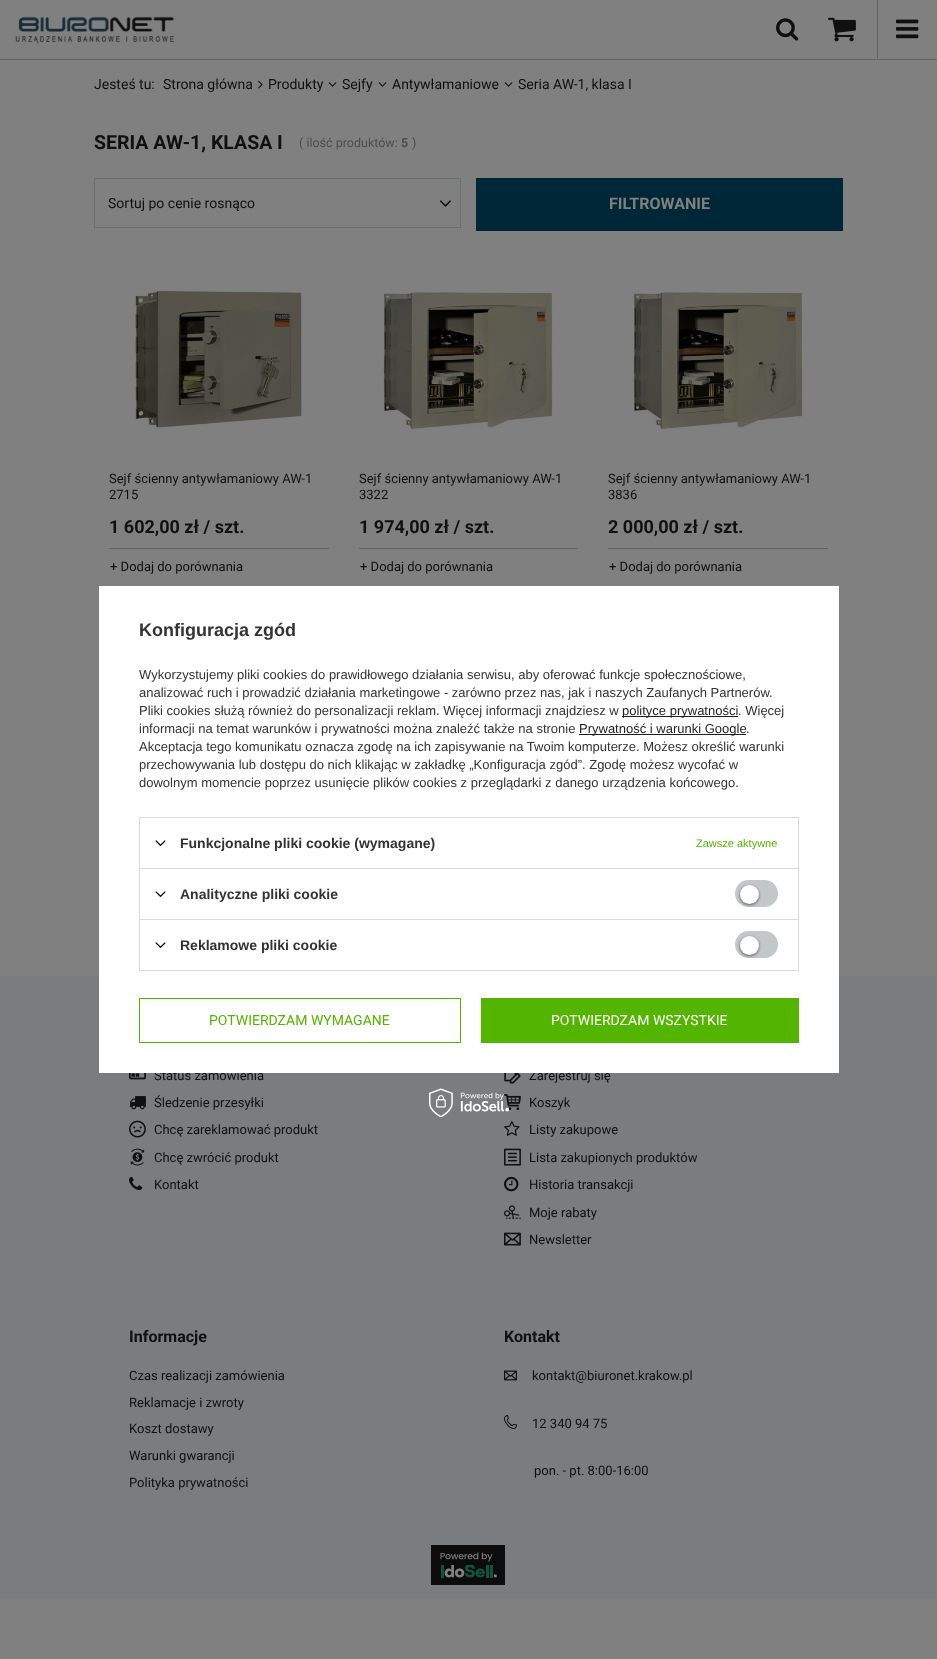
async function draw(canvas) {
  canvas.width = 937;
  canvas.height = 1659;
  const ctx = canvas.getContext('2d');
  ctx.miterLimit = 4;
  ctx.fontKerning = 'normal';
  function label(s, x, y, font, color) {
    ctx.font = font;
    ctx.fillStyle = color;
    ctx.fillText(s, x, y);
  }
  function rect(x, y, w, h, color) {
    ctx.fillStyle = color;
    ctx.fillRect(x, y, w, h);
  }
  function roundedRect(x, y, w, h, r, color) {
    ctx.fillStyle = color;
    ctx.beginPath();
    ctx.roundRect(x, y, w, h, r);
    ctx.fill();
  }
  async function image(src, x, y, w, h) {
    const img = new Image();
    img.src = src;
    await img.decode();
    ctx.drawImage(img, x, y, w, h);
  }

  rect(0, 0, 937, 1659, '#808080');
  rect(0, 59, 937, 1, '#626464');
  await image('assets/img1.png', 15, 16, 159, 28);
  await image('assets/img2.png', 776, 18, 23, 23);
  await image('assets/img3.png', 828, 17, 28, 25);
  rect(877, 0, 1, 58, '#626464');
  await image('assets/img4.png', 896, 19, 23, 20);
  label('Jesteś tu:', 94, 89, '14px Roboto', '#101010');
  label('Strona główna', 163, 89, '14px Roboto', '#101010');
  await image('assets/img5.png', 258, 80, 5, 9);
  label('Produkty', 268, 89, '14px Roboto', '#101010');
  await image('assets/img6.png', 328, 82, 9, 5);
  label('Sejfy', 342, 89, '14px Roboto', '#101010');
  await image('assets/img6.png', 378, 82, 9, 5);
  label('Antywłamaniowe', 392, 89, '14px Roboto', '#101010');
  await image('assets/img6.png', 504, 82, 9, 5);
  label('Seria AW-1, klasa I', 518, 89, '14px Roboto', '#101010');
  label('SERIA AW-1, KLASA I', 94, 149, 'bold 19.5px Roboto', '#101010');
  label('( ilość produktów:', 299, 147, '12.5px Roboto', '#4d4d4d');
  label('5', 401, 147, 'bold 12.5px Roboto', '#4d4d4d');
  label(')', 412, 147, '12.5px Roboto', '#4d4d4d');
  ctx.strokeStyle = '#697073';
  ctx.strokeRect(94.5, 178.5, 366, 49);
  label('Sortuj po cenie rosnąco', 108, 208, '14px Roboto', '#101010');
  await image('assets/img7.png', 439, 200, 12, 7);
  rect(476, 178, 367, 53, '#002738');
  label('FILTROWANIE', 609, 209, 'bold 16px Roboto', '#808080');
  await image('assets/img8.png', 135, 290, 167, 138);
  label('Sejf ścienny antywłamaniowy AW-1', 109, 483, '13px Roboto', '#101010');
  label('2715', 109, 499, '13px Roboto', '#101010');
  label('1 602,00 zł / szt.', 109, 533, 'bold 18px Roboto', '#101010');
  rect(109, 548, 220, 1, '#626464');
  label('+ Dodaj do porównania', 110, 571, '13px Roboto', '#101010');
  await image('assets/img9.png', 383, 292, 171, 138);
  label('Sejf ścienny antywłamaniowy AW-1', 359, 483, '13px Roboto', '#101010');
  label('3322', 359, 499, '13px Roboto', '#101010');
  label('1 974,00 zł / szt.', 359, 533, 'bold 18px Roboto', '#101010');
  rect(359, 548, 219, 1, '#626464');
  label('+ Dodaj do porównania', 360, 571, '13px Roboto', '#101010');
  await image('assets/img9.png', 633, 292, 171, 138);
  label('Sejf ścienny antywłamaniowy AW-1', 608, 483, '13px Roboto', '#101010');
  label('3836', 608, 499, '13px Roboto', '#101010');
  label('2 000,00 zł / szt.', 608, 533, 'bold 18px Roboto', '#101010');
  rect(608, 548, 220, 1, '#626464');
  label('+ Dodaj do porównania', 609, 571, '13px Roboto', '#101010');
  rect(0, 976, 937, 623, '#7b7c7d');
  label('Status zamówienia', 154, 1080, '13px Roboto', '#101010');
  label('Zarejestruj się', 529, 1080, '13px Roboto', '#101010');
  rect(99, 586, 740, 487, '#fff');
  label('Konfiguracja zgód', 139, 636, 'bold 18px Liberation Sans', '#333');
  label('Wykorzystujemy pliki cookies do prawidłowego działania serwisu, aby oferować funkcje społecznościowe,', 139, 679, '13px Liberation Sans', '#333');
  label('analizować ruch i prowadzić działania marketingowe - zarówno przez nas, jak i naszych Zaufanych Partnerów.', 139, 697, '13px Liberation Sans', '#333');
  label('Pliki cookies służą również do personalizacji reklam. Więcej informacji znajdziesz w', 139, 715, '13px Liberation Sans', '#333');
  rect(622, 716, 116, 1, '#1f1f1f');
  label('polityce prywatności', 622, 715, '13px Liberation Sans', '#1f1f1f');
  label('. Więcej', 738, 715, '13px Liberation Sans', '#333');
  label('informacji na temat warunków i prywatności można znaleźć także na stronie', 139, 733, '13px Liberation Sans', '#333');
  rect(579, 734, 167, 1, '#1f1f1f');
  label('Prywatność i warunki Google', 579, 733, '13px Liberation Sans', '#1f1f1f');
  label('.', 746, 733, '13px Liberation Sans', '#333');
  label('Akceptacja tego komunikatu oznacza zgodę na ich zapisywanie na Twoim komputerze. Możesz określić warunki', 139, 751, '13px Liberation Sans', '#333');
  label('przechowywania lub dostępu do nich klikając w zakładkę „Konfiguracja zgód”. Zgodę możesz wycofać w', 139, 769, '13px Liberation Sans', '#333');
  label('dowolnym momencie poprzez usunięcie plików cookies z przeglądarki z danego urządzenia końcowego.', 139, 787, '13px Liberation Sans', '#333');
  rect(139, 817, 660, 1, '#dbdbdb');
  rect(798, 817, 1, 51, '#dbdbdb');
  rect(139, 817, 1, 51, '#dbdbdb');
  await image('assets/img10.png', 155, 840, 11, 6);
  label('Funkcjonalne pliki cookie (wymagane)', 180, 848, 'bold 14px Liberation Sans', '#333');
  label('Zawsze aktywne', 696, 847, '11px Liberation Sans', '#54b500');
  rect(139, 868, 660, 1, '#dbdbdb');
  rect(798, 868, 1, 51, '#dbdbdb');
  rect(139, 868, 1, 51, '#dbdbdb');
  await image('assets/img10.png', 155, 891, 11, 6);
  label('Analityczne pliki cookie', 180, 899, 'bold 14px Liberation Sans', '#333');
  roundedRect(735, 880, 43, 27, 13.5, '#c4c7c8');
  ctx.fillStyle = '#0000008f';
  ctx.filter = 'blur(1.5px)';
  ctx.beginPath();
  ctx.roundRect(740, 886, 19, 19, 9.5);
  ctx.fill();
  ctx.filter = 'none';
  ctx.fillStyle = '#fff';
  ctx.beginPath();
  ctx.arc(749.5, 894.5, 9.5, 0, 2 * Math.PI);
  ctx.fill();
  ctx.strokeStyle = '#dbdbdb';
  ctx.strokeRect(139.5, 919.5, 659, 51);
  await image('assets/img10.png', 155, 942, 11, 6);
  label('Reklamowe pliki cookie', 180, 950, 'bold 14px Liberation Sans', '#333');
  roundedRect(735, 931, 43, 27, 13.5, '#c4c7c8');
  ctx.fillStyle = '#0000008f';
  ctx.filter = 'blur(1.5px)';
  ctx.beginPath();
  ctx.roundRect(740, 937, 19, 19, 9.5);
  ctx.fill();
  ctx.filter = 'none';
  ctx.fillStyle = '#fff';
  ctx.beginPath();
  ctx.arc(749.5, 945.5, 9.5, 0, 2 * Math.PI);
  ctx.fill();
  ctx.strokeStyle = '#54b500';
  ctx.strokeRect(139.5, 998.5, 321, 44);
  label('POTWIERDZAM WYMAGANE', 209, 1025, '14px Roboto', '#54b500');
  rect(481, 998, 318, 45, '#54b500');
  label('POTWIERDZAM WSZYSTKIE', 551, 1025, '14px Roboto', '#fff');
  await image('assets/img18.png', 504, 1094, 17, 16);
  await image('assets/img11.png', 429, 1088, 80, 29);
  await image('assets/img12.png', 129, 1073, 17, 7);
  await image('assets/img13.png', 129, 1096, 17, 14);
  label('Śledzenie przesyłki', 154, 1107, '13px Roboto', '#101010');
  await image('assets/img14.png', 129, 1120, 17, 18);
  label('Chcę zareklamować produkt', 154, 1134, '13px Roboto', '#101010');
  await image('assets/img15.png', 130, 1148, 15, 18);
  label('Chcę zwrócić produkt', 154, 1162, '13px Roboto', '#101010');
  await image('assets/img16.png', 129, 1176, 14, 15);
  label('Kontakt', 154, 1189, '13px Roboto', '#101010');
  await image('assets/img17.png', 504, 1073, 17, 11);
  label('Koszyk', 529, 1107, '13px Roboto', '#101010');
  await image('assets/img19.png', 504, 1121, 16, 15);
  label('Listy zakupowe', 529, 1134, '13px Roboto', '#101010');
  await image('assets/img20.png', 504, 1148, 17, 18);
  label('Lista zakupionych produktów', 529, 1162, '13px Roboto', '#101010');
  await image('assets/img21.png', 504, 1176, 15, 16);
  label('Historia transakcji', 529, 1189, '13px Roboto', '#101010');
  await image('assets/img22.png', 504, 1205, 17, 14);
  label('Moje rabaty', 529, 1217, '13px Roboto', '#101010');
  await image('assets/img23.png', 504, 1232, 17, 14);
  label('Newsletter', 529, 1244, '13px Roboto', '#101010');
  label('Informacje', 129, 1342, 'bold 16px Roboto', '#101010');
  label('Czas realizacji zamówienia', 129, 1380, '13px Roboto', '#101010');
  label('Reklamacje i zwroty', 129, 1407, '13px Roboto', '#101010');
  label('Koszt dostawy', 129, 1433, '13px Roboto', '#101010');
  label('Warunki gwarancji', 129, 1460, '13px Roboto', '#101010');
  label('Polityka prywatności', 129, 1487, '13px Roboto', '#101010');
  label('Kontakt', 504, 1342, 'bold 16px Roboto', '#101010');
  await image('assets/img24.png', 504, 1370, 13, 11);
  label('kontakt@biuronet.krakow.pl', 532, 1380, '13px Roboto', '#101010');
  await image('assets/img25.png', 504, 1415, 13, 14);
  label('12 340 94 75', 532, 1428, '13px Roboto', '#101010');
  label('pon. - pt. 8:00-16:00', 534, 1475, '13px Roboto', '#101010');
  await image('assets/img26.png', 431, 1545, 74, 40);
}

draw(document.querySelector('canvas'));
